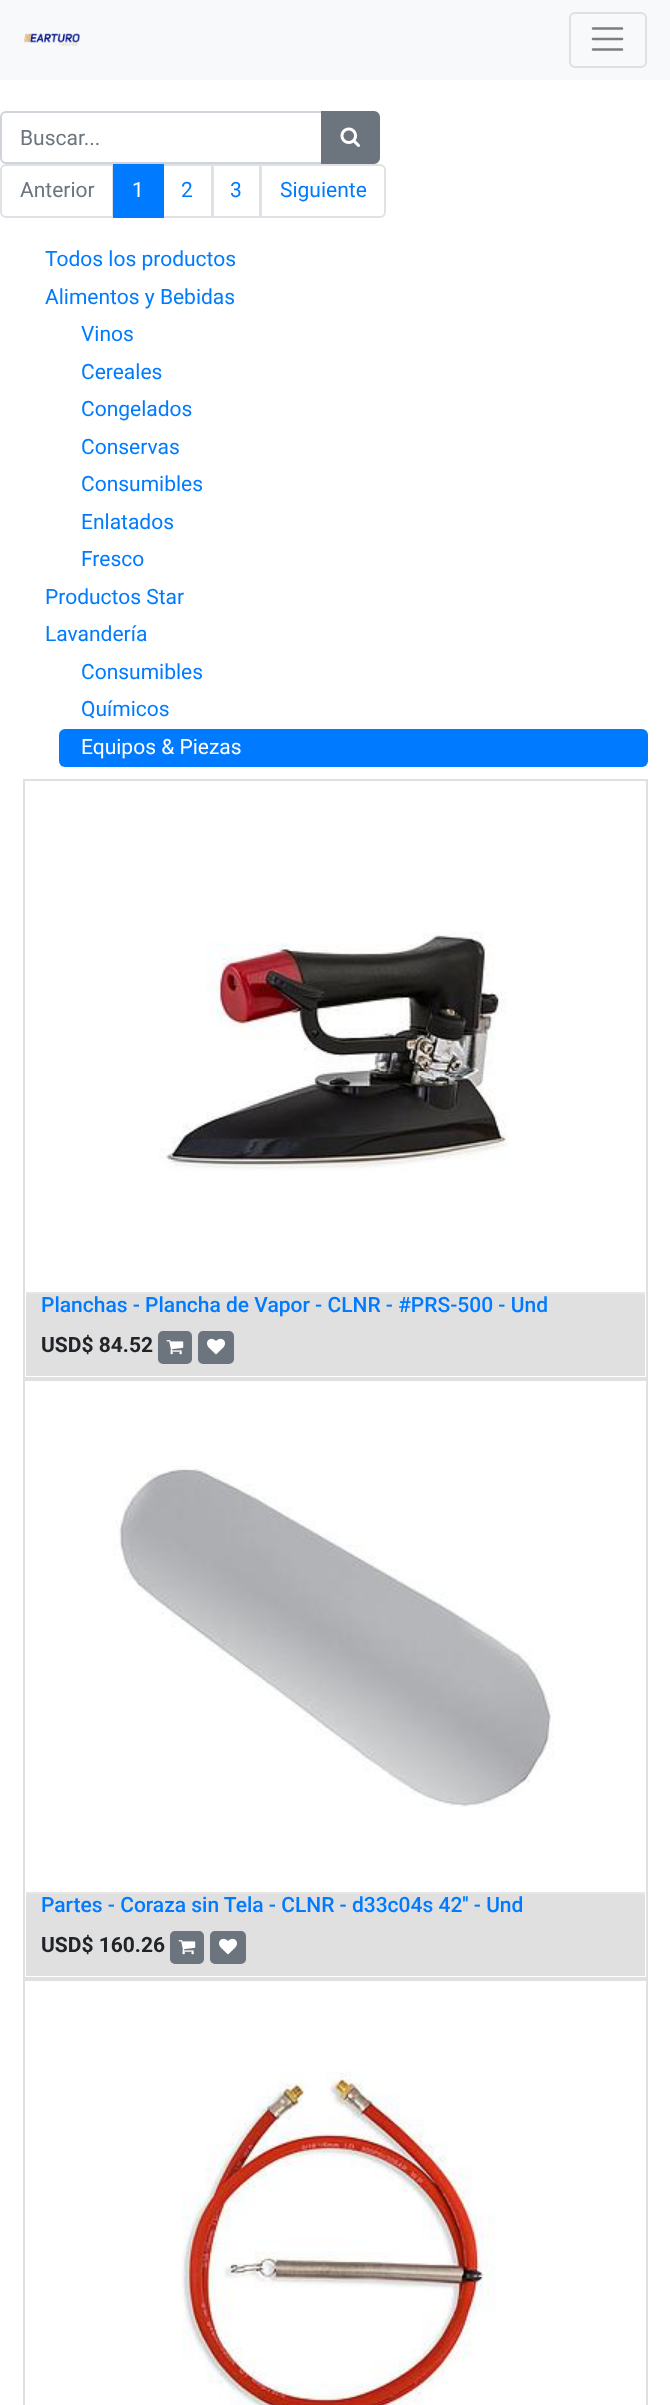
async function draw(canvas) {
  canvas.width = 670;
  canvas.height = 2405;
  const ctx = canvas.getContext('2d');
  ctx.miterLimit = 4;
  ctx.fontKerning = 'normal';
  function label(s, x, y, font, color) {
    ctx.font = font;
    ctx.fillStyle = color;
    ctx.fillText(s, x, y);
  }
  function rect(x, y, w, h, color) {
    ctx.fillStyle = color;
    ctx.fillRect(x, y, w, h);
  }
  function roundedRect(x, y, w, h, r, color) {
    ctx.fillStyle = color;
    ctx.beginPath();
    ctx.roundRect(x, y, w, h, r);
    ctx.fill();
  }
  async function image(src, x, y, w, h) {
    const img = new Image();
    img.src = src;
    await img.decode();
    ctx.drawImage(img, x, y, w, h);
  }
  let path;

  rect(0, 0, 670, 2405, '#fff');
  rect(0, 0, 670, 80, '#f8f9fa');
  await image('assets/img1.png', 24, 33, 56, 13);
  ctx.beginPath();
  ctx.roundRect(570, 13, 76, 54, 5);
  ctx.strokeStyle = '#dfe0e1';
  ctx.lineWidth = 2;
  ctx.stroke();
  path = new Path2D('M593 28.5H622M593 39H622M593 49.5H622');
  ctx.strokeStyle = '#7c7d7d';
  ctx.lineWidth = 2.6;
  ctx.lineCap = 'round';
  ctx.stroke(path);
  ctx.beginPath();
  ctx.roundRect(1, 112, 321, 51, [5, 0, 0, 5]);
  ctx.strokeStyle = '#ced4da';
  ctx.lineWidth = 2;
  ctx.stroke();
  label('Buscar...', 20, 145, '21px Roboto', '#6c757d');
  ctx.beginPath();
  ctx.roundRect(322, 112, 57, 51, [0, 5, 5, 0]);
  ctx.fill();
  ctx.strokeStyle = '#6c757d';
  ctx.stroke();
  await image('assets/img2.png', 340, 127, 20, 20);
  ctx.beginPath();
  ctx.roundRect(1, 165, 112, 52, [5, 0, 0, 5]);
  ctx.strokeStyle = '#dee2e6';
  ctx.stroke();
  label('Anterior', 20, 197, '21px Roboto', '#6c757d');
  ctx.strokeRect(163, 165, 49, 52);
  rect(113, 164, 51, 54, '#007bff');
  label('1', 132, 197, '21px Roboto', '#fff');
  label('2', 181, 197, '21px Roboto', '#007bff');
  ctx.strokeRect(213, 165, 47, 52);
  label('3', 230, 197, '21px Roboto', '#007bff');
  ctx.fillStyle = '#fff';
  ctx.beginPath();
  ctx.roundRect(261, 165, 124, 52, [0, 5, 5, 0]);
  ctx.fill();
  ctx.stroke();
  label('Siguiente', 280, 197, '21px Roboto', '#007bff');
  label('Todos los productos', 45, 266, '21px Roboto', '#007bff');
  label('Alimentos y Bebidas', 45, 304, '21px Roboto', '#007bff');
  label('Vinos', 81, 341, '21px Roboto', '#007bff');
  label('Cereales', 81, 379, '21px Roboto', '#007bff');
  label('Congelados', 81, 416, '21px Roboto', '#007bff');
  label('Conservas', 81, 454, '21px Roboto', '#007bff');
  label('Consumibles', 81, 491, '21px Roboto', '#007bff');
  label('Enlatados', 81, 529, '21px Roboto', '#007bff');
  label('Fresco', 81, 566, '21px Roboto', '#007bff');
  label('Productos Star', 45, 604, '21px Roboto', '#007bff');
  label('Lavandería', 45, 641, '21px Roboto', '#007bff');
  label('Consumibles', 81, 679, '21px Roboto', '#007bff');
  label('Químicos', 81, 716, '21px Roboto', '#007bff');
  roundedRect(59, 729, 589, 38, 6, '#007bff');
  label('Equipos & Piezas', 81, 754, '21px Roboto', '#fff');
  ctx.strokeStyle = '#e0e0e0';
  ctx.strokeRect(24, 780, 623, 598);
  await image('assets/img3.png', 159, 931, 350, 240);
  rect(26, 1294, 619, 82, '#e0e0e0');
  rect(26, 1292, 619, 2, '#e6e6e6');
  label('Planchas - Plancha de Vapor - CLNR - #PRS-500 - Und', 41, 1312, '500 21px Roboto', '#007bff');
  label('USD$ 84.52', 41, 1352, 'bold 21px Roboto', '#212529');
  ctx.fillStyle = '#6c757d';
  ctx.beginPath();
  ctx.roundRect(159, 1332, 32, 31, 4);
  ctx.fill();
  ctx.strokeStyle = '#6c757d';
  ctx.stroke();
  await image('assets/img4.png', 166, 1340, 18, 15);
  ctx.beginPath();
  ctx.roundRect(199, 1332, 34, 31, 4);
  ctx.fill();
  ctx.stroke();
  await image('assets/img5.png', 207, 1338, 18, 17);
  ctx.strokeStyle = '#e0e0e0';
  ctx.strokeRect(24, 1380, 623, 598);
  await image('assets/img6.png', 113, 1466, 441, 341);
  rect(26, 1894, 619, 82, '#e0e0e0');
  rect(26, 1892, 619, 2, '#e6e6e6');
  label('Partes - Coraza sin Tela - CLNR - d33c04s 42\'\' - Und', 41, 1912, '500 21px Roboto', '#007bff');
  label('USD$ 160.26', 41, 1952, 'bold 21px Roboto', '#212529');
  ctx.fillStyle = '#6c757d';
  ctx.beginPath();
  ctx.roundRect(171, 1932, 32, 31, 4);
  ctx.fill();
  ctx.strokeStyle = '#6c757d';
  ctx.stroke();
  await image('assets/img4.png', 178, 1940, 18, 15);
  ctx.beginPath();
  ctx.roundRect(211, 1932, 34, 31, 4);
  ctx.fill();
  ctx.stroke();
  await image('assets/img5.png', 219, 1938, 18, 17);
  ctx.strokeStyle = '#e0e0e0';
  ctx.strokeRect(24, 1980, 623, 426);
  await image('assets/img7.png', 181, 2071, 315, 334);
}

draw(document.querySelector('canvas'));
